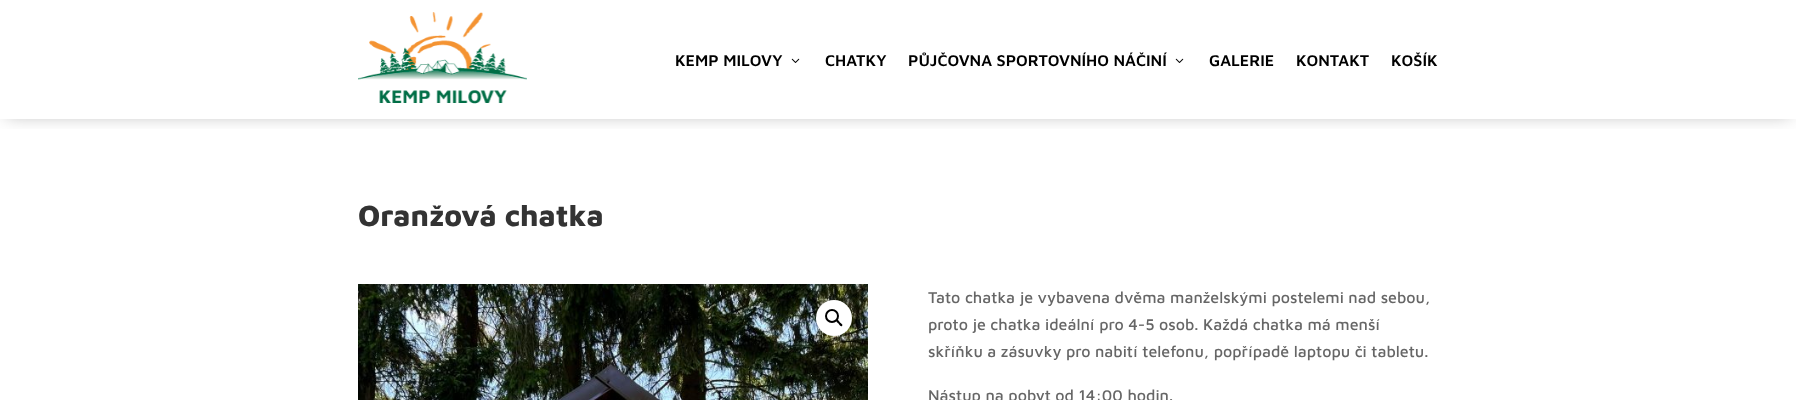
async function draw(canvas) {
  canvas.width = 1796;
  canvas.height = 400;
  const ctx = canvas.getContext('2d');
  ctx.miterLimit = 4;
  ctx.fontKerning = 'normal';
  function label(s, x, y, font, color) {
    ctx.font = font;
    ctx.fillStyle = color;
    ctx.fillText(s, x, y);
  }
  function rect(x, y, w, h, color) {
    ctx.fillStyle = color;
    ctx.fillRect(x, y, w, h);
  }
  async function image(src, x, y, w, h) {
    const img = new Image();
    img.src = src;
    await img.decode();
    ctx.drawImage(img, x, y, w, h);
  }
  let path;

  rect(0, 0, 1796, 400, '#fff');
  ctx.save();
  ctx.beginPath();
  ctx.rect(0, 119, 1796, 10);
  ctx.clip();
  ctx.fillStyle = '#0000004d';
  ctx.filter = 'blur(9px)';
  ctx.beginPath();
  ctx.rect(6, 8, 1784, 107);
  ctx.fill();
  ctx.filter = 'none';
  ctx.restore();
  await image('assets/img1.png', 358, 12, 169, 92);
  label('KEMP MILOVY', 675, 66, '600 16px Maven Pro', '#000');
  await image('assets/img2.png', 791, 58, 9, 5);
  label('CHATKY', 825, 66, '600 16px Maven Pro', '#000');
  label('PŮJČOVNA SPORTOVNÍHO NÁČINÍ', 908, 66, '600 16px Maven Pro', '#000');
  await image('assets/img2.png', 1175, 58, 9, 5);
  label('GALERIE', 1209, 66, '600 16px Maven Pro', '#000');
  label('KONTAKT', 1296, 66, '600 16px Maven Pro', '#000');
  label('KOŠÍK', 1391, 66, '600 16px Maven Pro', '#000');
  label('Oranžová chatka', 358, 226, '800 30px Maven Pro', '#333');
  await image('assets/img3.png', 358, 284, 510, 116);
  ctx.fillStyle = '#fff';
  ctx.beginPath();
  ctx.arc(834, 318, 18, 0, 2 * Math.PI);
  ctx.fill();
  ctx.beginPath();
  ctx.arc(832, 316, 6, 0, 2 * Math.PI);
  ctx.strokeStyle = '#000';
  ctx.lineWidth = 2;
  ctx.stroke();
  ctx.fillStyle = '#000';
  path = new Path2D('M836.5 320C837.5 319 839.5 321.5 840 322.5C840.5 323 843.5 324.5 842 326C841 327 839 324.5 838.5 323.5C838 323 835.5 321.5 836.5 320Z');
  ctx.fill(path);
  label('Tato chatka je vybavena dvěma manželskými postelemi nad sebou,', 928, 303, '500 16px Maven Pro', '#666');
  label('proto je chatka ideální pro 4-5 osob. Každá chatka má menší', 928, 330, '500 16px Maven Pro', '#666');
  label('skříňku a zásuvky pro nabití telefonu, popřípadě laptopu či tabletu.', 928, 357, '500 16px Maven Pro', '#666');
  label('Nástup na pobyt od 14:00 hodin.', 928, 401, '500 16px Maven Pro', '#666');
}

draw(document.querySelector('canvas'));
